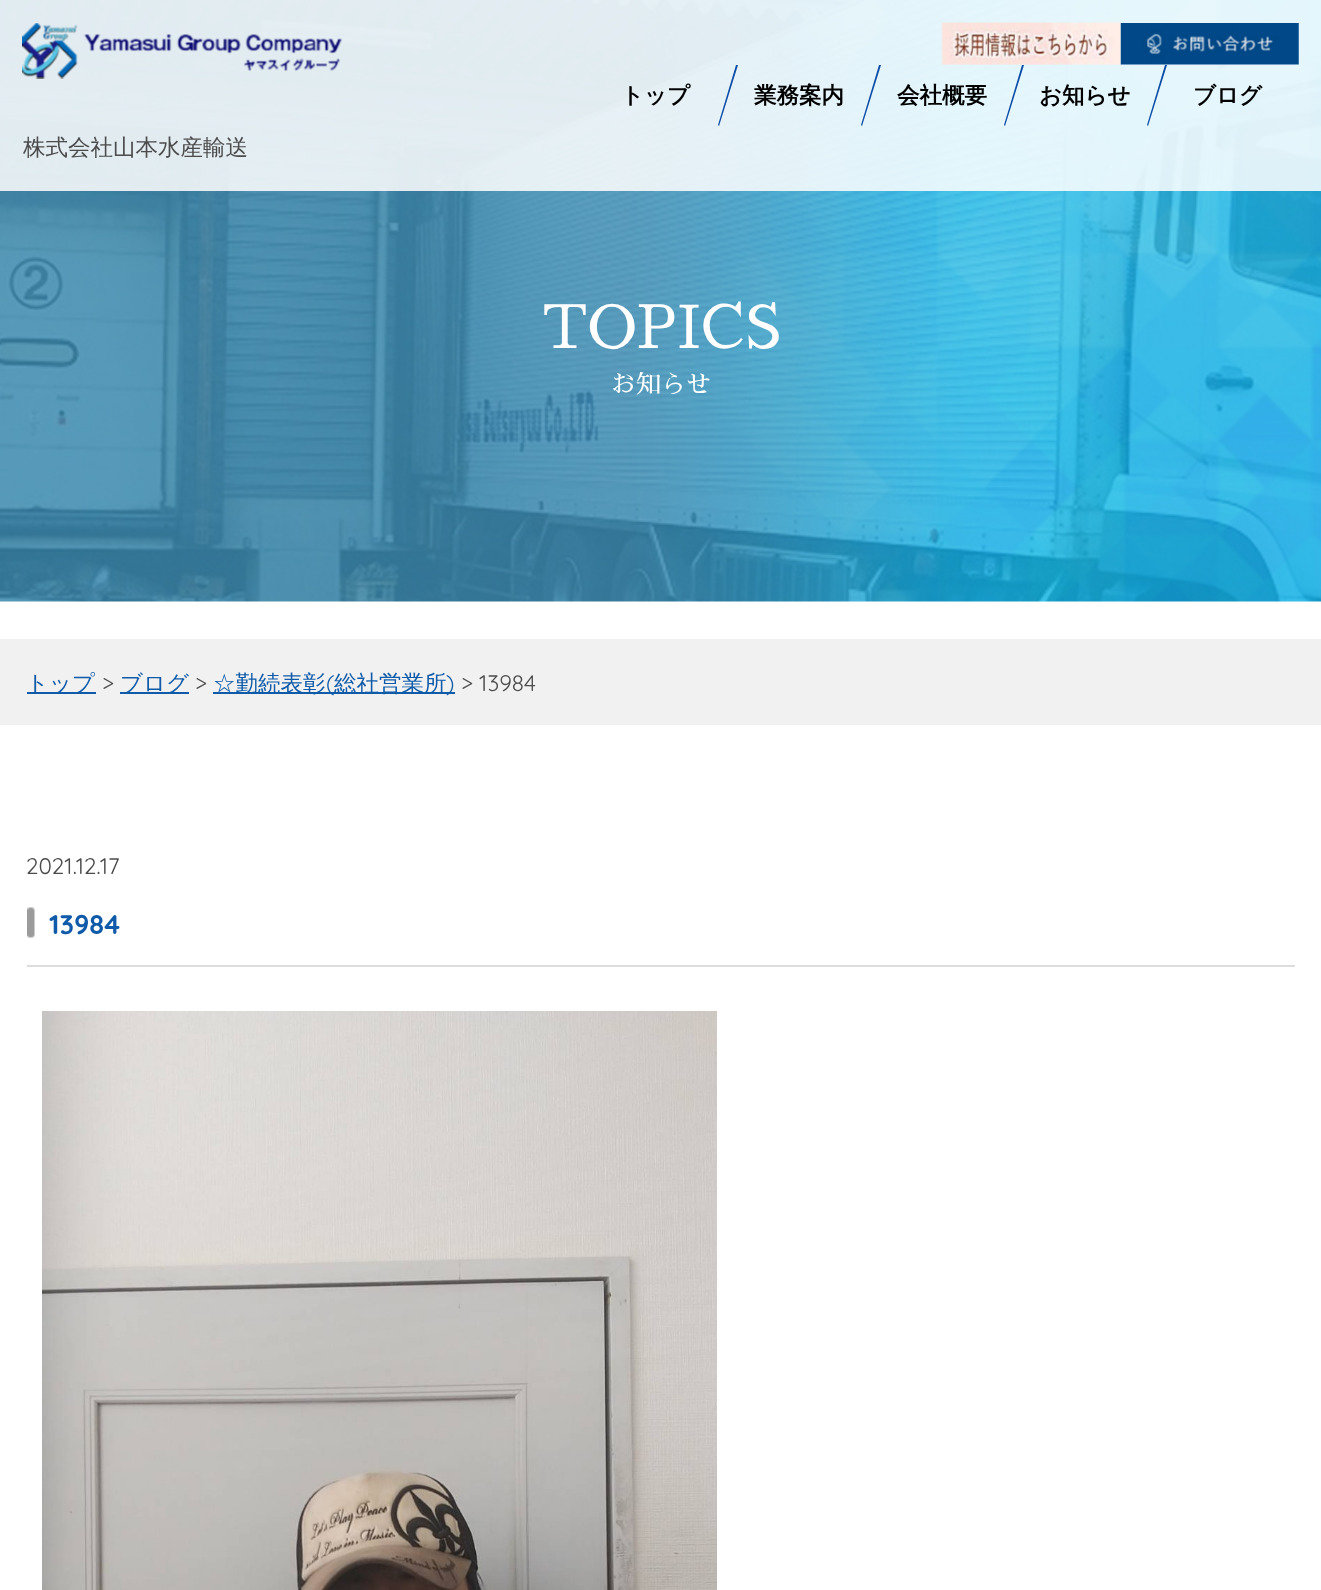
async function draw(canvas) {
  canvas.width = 1321;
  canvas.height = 1590;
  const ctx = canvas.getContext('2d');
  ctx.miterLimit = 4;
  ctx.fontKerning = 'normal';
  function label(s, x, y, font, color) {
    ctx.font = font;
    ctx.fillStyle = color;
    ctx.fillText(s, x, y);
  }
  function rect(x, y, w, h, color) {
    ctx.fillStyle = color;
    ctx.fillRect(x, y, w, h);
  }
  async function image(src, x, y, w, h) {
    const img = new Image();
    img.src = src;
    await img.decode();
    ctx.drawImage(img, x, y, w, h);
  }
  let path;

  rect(0, 0, 1321, 1590, '#fff');
  await image('assets/img4.png', 0, 0, 1321, 602);
  rect(0, 0, 1321, 191, '#ffffffd9');
  await image('assets/img1.png', 22, 23, 321, 56);
  await image('assets/img3.png', 1120, 23, 179, 42);
  await image('assets/img2.png', 941, 22, 180, 43);
  label('トップ', 621, 103, 'bold 22.5px WenQuanYi Zen Hei', '#000');
  ctx.fillStyle = '#0a4ca7';
  path = new Path2D('M736 65H738L719 126L718 125Z');
  ctx.fill(path);
  label('業務案内', 754, 103, 'bold 22.5px WenQuanYi Zen Hei', '#000');
  ctx.fillStyle = '#0a4ca7';
  path = new Path2D('M879 65H881L862 126L861 125Z');
  ctx.fill(path);
  label('会社概要', 897, 103, 'bold 22.5px WenQuanYi Zen Hei', '#000');
  ctx.fillStyle = '#0a4ca7';
  path = new Path2D('M1022 65H1024L1005 126L1004 125Z');
  ctx.fill(path);
  label('お知らせ', 1039, 103, 'bold 22.5px WenQuanYi Zen Hei', '#000');
  ctx.fillStyle = '#0a4ca7';
  path = new Path2D('M1165 65H1167L1148 126L1147 125Z');
  ctx.fill(path);
  label('ブログ', 1193, 103, 'bold 22.5px WenQuanYi Zen Hei', '#000');
  label('株式会社山本水産輸送', 23, 155, '500 22.5px WenQuanYi Zen Hei', '#4c4b4b');
  label('TOPICS', 542, 348, '59.5px Sawarabi Mincho', '#fff');
  label('お知らせ', 611, 393, '25px Sawarabi Mincho', '#fff');
  rect(0, 639, 1321, 86, '#f1f1f1');
  rect(27, 692, 69, 2, '#0f5ba9');
  label('トップ', 26, 691, '500 22.5px WenQuanYi Zen Hei', '#0f5ba9');
  label('>', 102, 691, '22.5px Quicksand', '#4c4b4b');
  rect(120, 692, 69, 2, '#0f5ba9');
  label('ブログ', 120, 691, '500 22.5px WenQuanYi Zen Hei', '#0f5ba9');
  label('>', 195, 691, '22.5px Quicksand', '#4c4b4b');
  rect(213, 692, 242, 2, '#0f5ba9');
  label('☆勤続表彰', 213, 691, '500 22.5px WenQuanYi Zen Hei', '#0f5ba9');
  label('(', 326, 691, '22.5px Quicksand', '#0f5ba9');
  label('総社営業所', 334, 691, '500 22.5px WenQuanYi Zen Hei', '#0f5ba9');
  label(')', 446, 691, '22.5px Quicksand', '#0f5ba9');
  label('> 13984', 461, 691, '22.5px Quicksand', '#4c4b4b');
  label('2021.12.17', 26, 874, '22.5px Quicksand', '#4c4b4b');
  await image('assets/img5.png', 27, 907, 8, 31);
  rect(27, 965, 1268, 2, '#ddd');
  label('13984', 49, 934, 'bold 27px Quicksand', '#0f5ba9');
  await image('assets/img6.png', 42, 1011, 675, 579);
}

draw(document.querySelector('canvas'));
